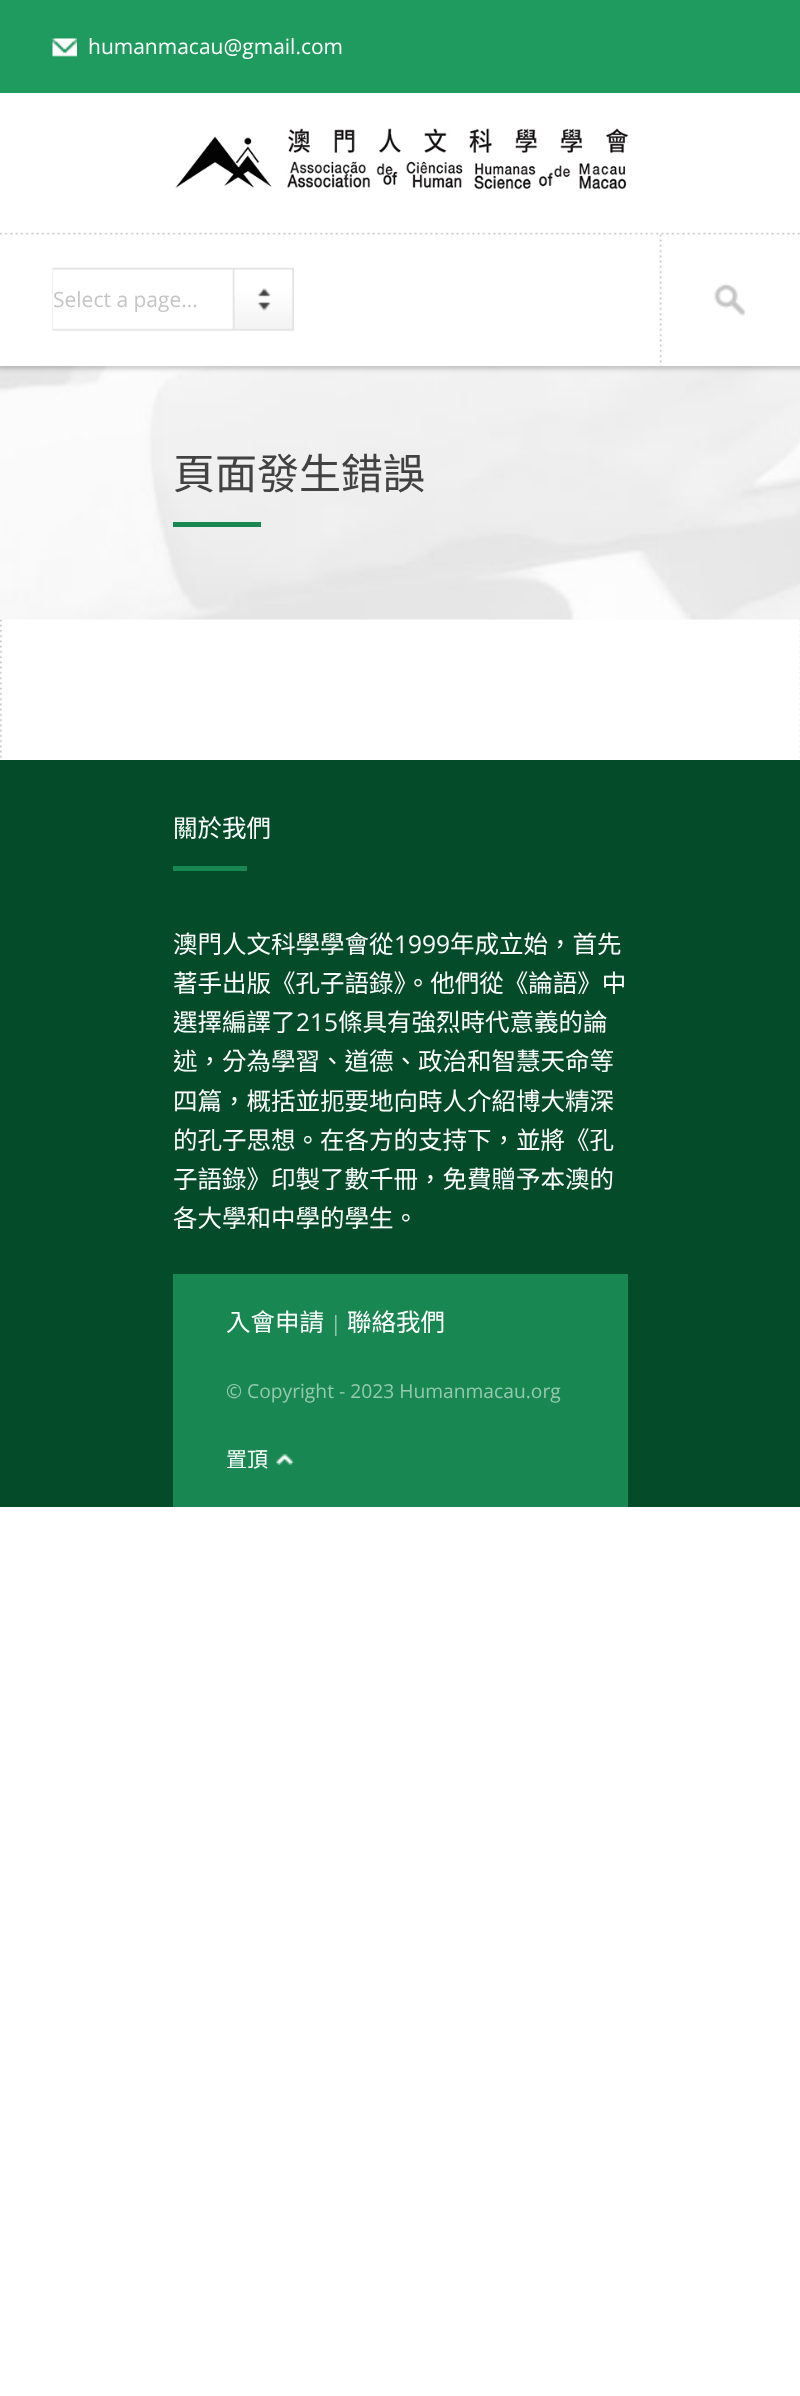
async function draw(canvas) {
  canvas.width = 800;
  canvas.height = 2396;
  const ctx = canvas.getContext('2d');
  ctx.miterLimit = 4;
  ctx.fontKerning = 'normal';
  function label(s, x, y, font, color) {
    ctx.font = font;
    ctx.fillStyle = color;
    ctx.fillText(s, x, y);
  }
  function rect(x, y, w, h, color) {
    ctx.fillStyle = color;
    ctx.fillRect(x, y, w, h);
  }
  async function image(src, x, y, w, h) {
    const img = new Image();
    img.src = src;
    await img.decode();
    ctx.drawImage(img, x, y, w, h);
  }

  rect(0, 0, 800, 2396, '#fff');
  await image('assets/img7.png', 0, 366, 800, 254);
  ctx.fillStyle = '#00000033';
  ctx.filter = 'blur(2px)';
  ctx.beginPath();
  ctx.rect(-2, 0, 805, 369);
  ctx.fill();
  ctx.filter = 'none';
  rect(0, 93, 800, 273, '#fff');
  rect(0, 0, 800, 93, '#209b60');
  await image('assets/img1.png', 52, 38, 25, 19);
  label('humanmacau@gmail.com', 88, 54, '21px Open Sans', '#fff');
  await image('assets/img2.png', 175, 128, 454, 62);
  await image('assets/img3.png', 0, 232, 800, 3);
  await image('assets/img4.png', 52, 267, 242, 64);
  await image('assets/img5.png', 53, 269, 241, 61);
  label('Select a page...', 53, 307, '21px Open Sans', '#c5c5c5');
  await image('assets/img6.png', 659, 234, 86, 132);
  label('頁面發生錯誤', 173, 489, '42px Noto Sans CJK TC', '#424242');
  rect(173, 522, 88, 5, '#198752');
  await image('assets/img8.png', 0, 619, 800, 140);
  rect(0, 760, 800, 747, '#034b29');
  label('關於我們', 173, 837, '24.5px Noto Sans CJK TC', '#fff');
  rect(173, 866, 74, 5, '#198752');
  label('澳門人文科學學會從', 173, 953, '24.5px Noto Sans CJK TC', '#fff');
  label('1999', 394, 953, '24.5px Open Sans', '#fff');
  label('年成立始，首先', 450, 953, '24.5px Noto Sans CJK TC', '#fff');
  label('著手出版《孔子語錄》。他們從《論語》中', 173, 992, '24.5px Noto Sans CJK TC', '#fff');
  label('選擇編譯了', 173, 1031, '24.5px Noto Sans CJK TC', '#fff');
  label('215', 296, 1031, '24.5px Open Sans', '#fff');
  label('條具有強烈時代意義的論', 338, 1031, '24.5px Noto Sans CJK TC', '#fff');
  label('述，分為學習、道德、政治和智慧天命等', 173, 1070, '24.5px Noto Sans CJK TC', '#fff');
  label('四篇，概括並扼要地向時人介紹博大精深', 173, 1110, '24.5px Noto Sans CJK TC', '#fff');
  label('的孔子思想。在各方的支持下，並將《孔', 173, 1149, '24.5px Noto Sans CJK TC', '#fff');
  label('子語錄》印製了數千冊，免費贈予本澳的', 173, 1188, '24.5px Noto Sans CJK TC', '#fff');
  label('各大學和中學的學生。', 173, 1227, '24.5px Noto Sans CJK TC', '#fff');
  rect(173, 1274, 455, 233, '#198752');
  label('入會申請', 226, 1331, '24.5px Noto Sans CJK TC', '#fff');
  label('|', 330, 1331, '21px Open Sans', '#94c9b0');
  label('聯絡我們', 347, 1331, '24.5px Noto Sans CJK TC', '#fff');
  label('© Copyright - 2023 Humanmacau.org', 226, 1398, '19.25px Open Sans', '#94c9b0');
  await image('assets/img9.png', 276, 1454, 18, 11);
  label('置頂', 226, 1467, '21px Noto Sans CJK TC', '#fff');
}

draw(document.querySelector('canvas'));
